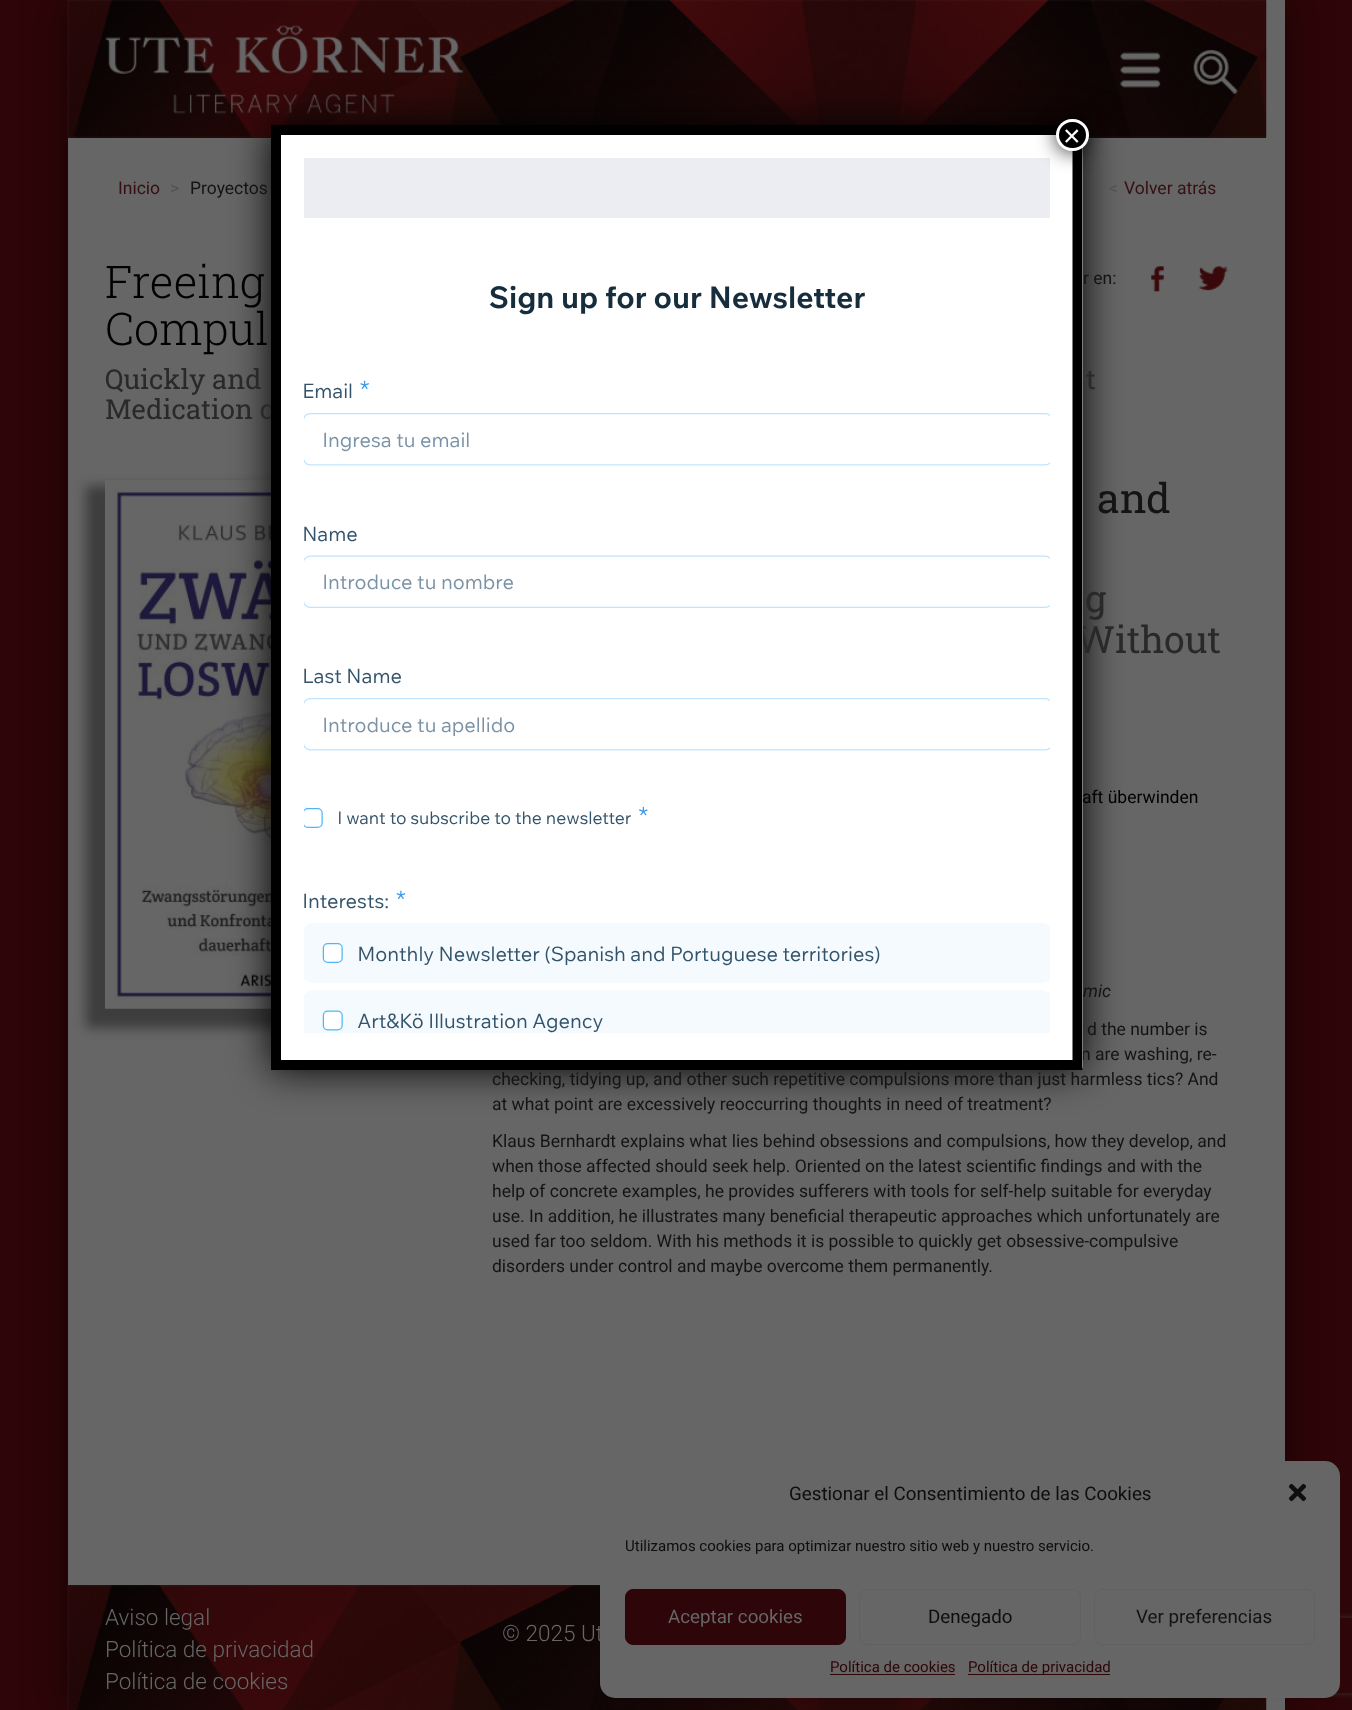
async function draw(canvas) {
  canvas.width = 1352;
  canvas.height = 1710;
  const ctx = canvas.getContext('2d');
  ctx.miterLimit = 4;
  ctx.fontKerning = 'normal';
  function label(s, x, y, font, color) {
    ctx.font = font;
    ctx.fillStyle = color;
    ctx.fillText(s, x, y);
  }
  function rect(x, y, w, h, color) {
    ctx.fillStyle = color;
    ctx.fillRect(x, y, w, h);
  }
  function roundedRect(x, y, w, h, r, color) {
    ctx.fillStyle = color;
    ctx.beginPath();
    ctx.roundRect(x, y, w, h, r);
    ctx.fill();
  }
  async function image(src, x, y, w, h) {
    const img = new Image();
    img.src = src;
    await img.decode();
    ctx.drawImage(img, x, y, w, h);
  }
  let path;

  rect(0, 0, 1352, 1710, '#2e0508');
  ctx.fillStyle = '#00000080';
  ctx.filter = 'blur(22px)';
  ctx.beginPath();
  ctx.rect(68, 0, 1217, 1710);
  ctx.fill();
  ctx.filter = 'none';
  rect(68, 0, 1217, 1710, '#666');
  rect(68, 137, 1198, 1, '#2e0508');
  await image('assets/img2.png', 67, 0, 1200, 138);
  await image('assets/img3.png', 105, 25, 359, 89);
  await image('assets/img4.png', 1120, 52, 41, 36);
  ctx.fillStyle = '#00000066';
  ctx.filter = 'blur(6px)';
  ctx.beginPath();
  ctx.rect(86, 486, 363, 542);
  ctx.fill();
  ctx.filter = 'none';
  await image('assets/img8.png', 105, 480, 166, 529);
  ctx.fillStyle = '#020202';
  ctx.filter = 'blur(19px)';
  ctx.beginPath();
  ctx.roundRect(271, 125, 812, 945, 4);
  ctx.fill();
  ctx.filter = 'none';
  label('Medication o', 105, 419, '27.5px Roboto Slab', '#292929');
  label('Without', 1076, 653, '37.5px Roboto Slab', '#292929');
  label('aft überwinden', 1082, 803, '17.5px Roboto', '#000');
  label('mic', 1083, 997, 'italic 17.5px Roboto', '#141414');
  label('n are washing, re-', 1081, 1060, '17.5px Roboto', '#141414');
  roundedRect(271, 125, 812, 945, 4, '#fff');
  path = new Path2D('M276 130H1077.5V1065H276Z');
  ctx.strokeStyle = '#000';
  ctx.lineWidth = 10;
  ctx.stroke(path);
  await image('assets/img1.png', 304, 158, 746, 875);
  ctx.fillStyle = '#020202bf';
  ctx.filter = 'blur(9.5px)';
  ctx.beginPath();
  ctx.roundRect(1055, 118, 35, 35, 17.5);
  ctx.fill();
  ctx.filter = 'none';
  ctx.fillStyle = '#000';
  ctx.beginPath();
  ctx.roundRect(1057.5, 120.5, 30, 29, 14.5);
  ctx.fill();
  ctx.strokeStyle = '#fff';
  ctx.lineWidth = 3;
  ctx.stroke();
  label('×', 1063, 146, '30px Liberation Sans', '#fff');
  await image('assets/img5.png', 1193, 49, 45, 45);
  label('Inicio', 118, 194, '17.5px Roboto', '#360f14');
  label('>', 170, 194, '17.5px Roboto', '#525252');
  label('Proyectos', 190, 194, '17.5px Roboto', '#141414');
  label('<', 1109, 194, '17.5px Roboto', '#525252');
  label('Volver atrás', 1124, 194, '17.5px Roboto', '#360f14');
  label('Freeing', 105, 298, '300 45px Roboto Slab', '#000');
  label('Compul', 105, 345, '300 45px Roboto Slab', '#000');
  label('r en:', 1083, 284, '17.5px Roboto', '#141414');
  await image('assets/img6.png', 1151, 266, 13, 26);
  await image('assets/img7.png', 1198, 266, 30, 25);
  label('Quickly and', 105, 389, '27.5px Roboto Slab', '#292929');
  label('t', 1086, 389, '27.5px Roboto Slab', '#292929');
  label('and', 1097, 513, '41px Roboto Slab', '#141414');
  label('g', 1085, 612, '37.5px Roboto Slab', '#292929');
  label('d the number is', 1087, 1035, '17.5px Roboto', '#141414');
  label('checking, tidying up, and other such repetitive compulsions more than just harmless tics? And', 492, 1085, '17.5px Roboto', '#141414');
  label('at what point are excessively reoccurring thoughts in need of treatment?', 492, 1110, '17.5px Roboto', '#141414');
  label('Klaus Bernhardt explains what lies behind obsessions and compulsions, how they develop, and', 492, 1147, '17.5px Roboto', '#141414');
  label('when those affected should seek help. Oriented on the latest scientific findings and with the', 492, 1172, '17.5px Roboto', '#141414');
  label('help of concrete examples, he provides sufferers with tools for self-help suitable for everyday', 492, 1197, '17.5px Roboto', '#141414');
  label('use. In addition, he illustrates many beneficial therapeutic approaches which unfortunately are', 492, 1222, '17.5px Roboto', '#141414');
  label('used far too seldom. With his methods it is possible to quickly get obsessive-compulsive', 492, 1247, '17.5px Roboto', '#141414');
  label('disorders under control and maybe overcome them permanently.', 492, 1272, '17.5px Roboto', '#141414');
  await image('assets/img9.png', 67, 1585, 1200, 125);
  label('Aviso legal', 105, 1625, '300 22.5px Roboto', '#666');
  label('Política de privacidad', 105, 1657, '300 22.5px Roboto', '#666');
  label('Política de cookies', 105, 1689, '300 22.5px Roboto', '#666');
  label('© 2025 Ut', 502, 1641, '300 22.5px Roboto', '#666');
  ctx.save();
  path = new Path2D('M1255 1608H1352V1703H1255ZM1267.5 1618H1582.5C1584 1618 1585 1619 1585 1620.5V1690.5C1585 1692 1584 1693 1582.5 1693H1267.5C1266 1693 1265 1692 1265 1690.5V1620.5C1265 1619 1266 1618 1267.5 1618Z');
  ctx.clip(path, 'evenodd');
  ctx.fillStyle = '#333';
  ctx.filter = 'blur(3px)';
  ctx.beginPath();
  ctx.roundRect(1265, 1618, 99, 75, 2.5);
  ctx.fill();
  ctx.filter = 'none';
  ctx.restore();
  roundedRect(600, 1461, 740, 237, 15, '#666');
  label('Gestionar el Consentimiento de las Cookies', 789, 1500, '18.75px Roboto', '#0e0e0e');
  await image('assets/img10.png', 1288, 1483, 19, 19);
  label('Utilizamos cookies para optimizar nuestro sitio web y nuestro servicio.', 625, 1551, '15px Roboto', '#0e0e0e');
  ctx.fillStyle = '#2e0508';
  ctx.beginPath();
  ctx.roundRect(625.5, 1589.5, 220, 55, 7.5);
  ctx.fill();
  ctx.strokeStyle = '#2e0508';
  ctx.lineWidth = 1;
  ctx.stroke();
  label('Aceptar cookies', 668, 1623, '18.75px Roboto', '#666');
  ctx.beginPath();
  ctx.roundRect(859.5, 1589.5, 221, 55, 7.5);
  ctx.strokeStyle = '#616161';
  ctx.stroke();
  label('Denegado', 928, 1623, '18.75px Roboto', '#0e0e0e');
  ctx.beginPath();
  ctx.roundRect(1094.5, 1589.5, 220, 55, 7.5);
  ctx.stroke();
  label('Ver preferencias', 1136, 1623, '18.75px Roboto', '#141414');
  label('Política de cookies', 830, 1672, '15px Roboto', '#2e0508');
  rect(830, 1674, 125, 1, '#2e0508');
  rect(968, 1674, 142, 1, '#2e0508');
  label('Política de privacidad', 968, 1672, '15px Roboto', '#2e0508');
}

draw(document.querySelector('canvas'));
